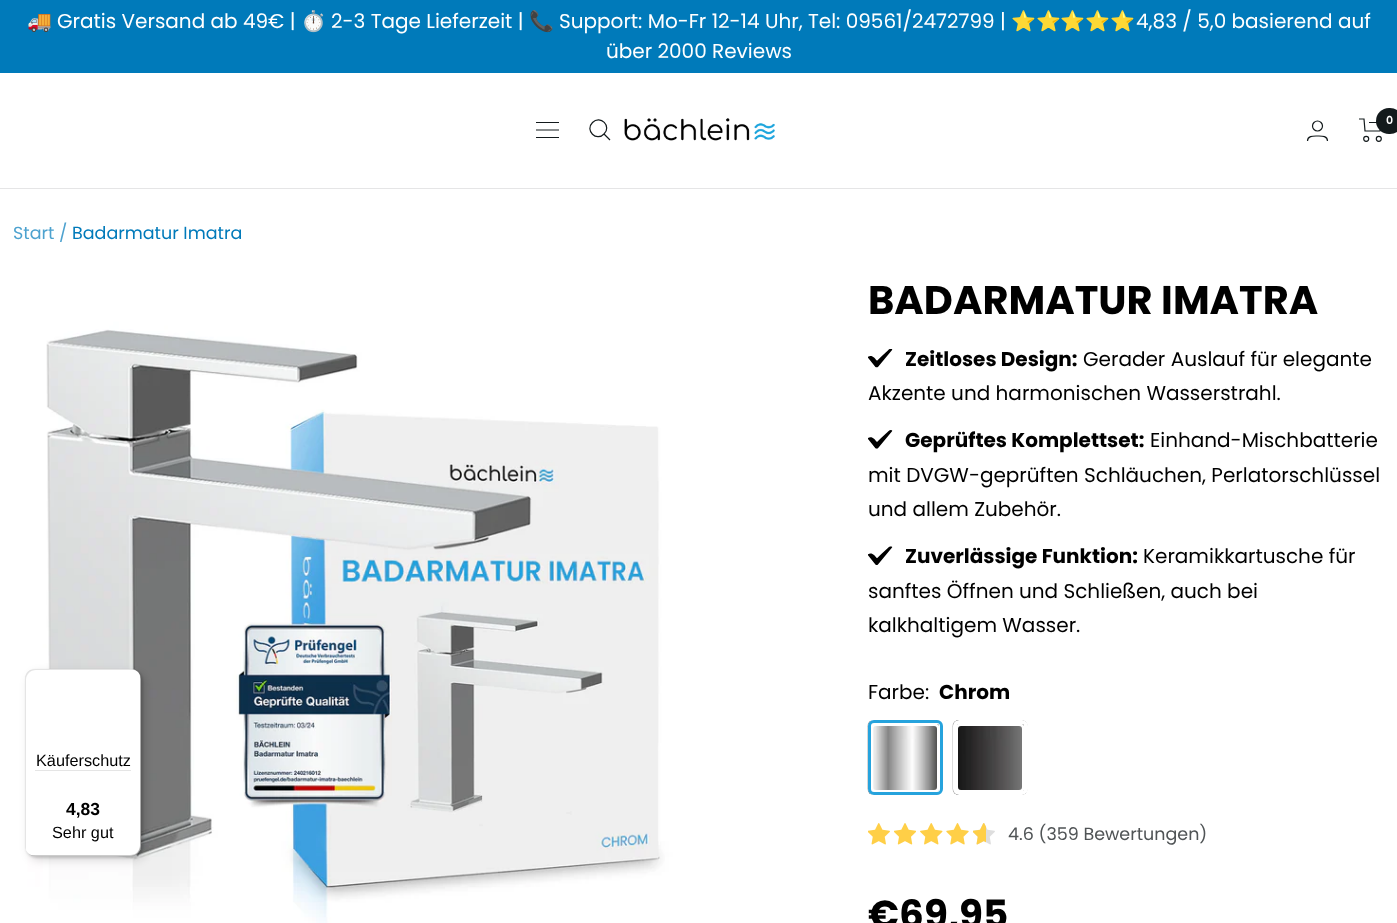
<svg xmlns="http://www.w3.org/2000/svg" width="1397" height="923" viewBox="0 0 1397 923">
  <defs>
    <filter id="blur1" x="-50%" y="-200%" width="200%" height="500%"><feGaussianBlur stdDeviation="5"/></filter>
    <filter id="blur2" x="-50%" y="-200%" width="200%" height="500%"><feGaussianBlur stdDeviation="1"/></filter>
  </defs>
  <rect width="100%" height="100%" fill="#ffffff"/>
  <rect x="0" y="0" width="1397" height="73" fill="#007aba"/>
  <text x="27" y="28" font-family="Noto Color Emoji" font-size="20" fill="#ffffff">🚚</text>
  <text x="57" y="28" font-family="Poppins" font-size="20" fill="#ffffff">Gratis Versand ab 49€ |</text>
  <text x="301" y="28" font-family="Noto Color Emoji" font-size="20" fill="#ffffff">⏱️</text>
  <text x="331" y="28" font-family="Poppins" font-size="20" fill="#ffffff">2-3 Tage Lieferzeit |</text>
  <text x="529" y="28" font-family="Noto Color Emoji" font-size="20" fill="#ffffff">📞</text>
  <text x="559" y="28" font-family="Poppins" font-size="20" fill="#ffffff">Support: Mo-Fr 12-14 Uhr, Tel: 09561/2472799 |</text>
  <text x="1011" y="28" font-family="Noto Color Emoji" font-size="20" fill="#ffffff">⭐️⭐️⭐️⭐️⭐️</text>
  <text x="1136" y="28" font-family="Poppins" font-size="20" fill="#ffffff">4,83 / 5,0 basierend auf</text>
  <text x="606" y="58" font-family="Poppins" font-size="20" fill="#ffffff">über 2000 Reviews</text>
  <path d="M0 188V189H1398V74V188Z" fill="#e5e5e6"/>
  <path d="M536 122.5H559M536 137.5H559ZM536 130H559Z" fill="none" stroke="#131a1c" stroke-width="1.2"/>
  <path d="M604 134C612 126.5 600.5 114.5 592.5 122.5C584.5 130.5 596.5 142 604 134ZM604 134L610 140" fill="none" stroke="#131a1c" stroke-width="1.2"/>
  <image x="624" y="118" width="151" height="23" href="img1.png"/>
  <circle cx="1317.5" cy="126" r="5" fill="none" stroke="#131a1c" stroke-width="1.2"/>
  <path d="M1307.5 141C1307.5 135.5 1313.5 136 1317.5 136C1321.5 136 1327.5 135.5 1327.5 141" fill="none" stroke="#131a1c" stroke-width="1.2"/>
  <path d="M1359 119H1364L1365 131H1380L1382.5 122.5H1369" fill="none" stroke="#131a1c" stroke-width="1.2"/>
  <circle cx="1366.2" cy="138.8" r="2.5" fill="none" stroke="#131a1c" stroke-width="1.2"/>
  <circle cx="1378.8" cy="138.8" r="2.5" fill="none" stroke="#131a1c" stroke-width="1.2"/>
  <rect x="1376" y="108" width="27" height="26" rx="13" fill="#131a1c"/>
  <text x="1386" y="124" font-family="Poppins" font-size="11" font-weight="600" fill="#ffffff">0</text>
  <text x="13" y="239" font-family="Poppins" font-size="17.5" fill="#4da2cf">Start</text>
  <text x="59" y="239" font-family="Poppins" font-size="17.5" fill="#4da2cf">/</text>
  <text x="72" y="239" font-family="Poppins" font-size="17.5" fill="#007aba">Badarmatur Imatra</text>
  <image x="13" y="280" width="663" height="643" href="img2.png"/>
  <text x="868" y="314" font-family="Poppins" font-size="40" font-weight="bold" fill="#000000">BADARMATUR IMATRA</text>
  <image x="868" y="349" width="25" height="19" href="img3.png"/>
  <text x="905" y="366" font-family="Poppins" font-size="20" font-weight="bold" fill="#000000">Zeitloses Design:</text>
  <text x="1083" y="366" font-family="Poppins" font-size="20" fill="#000000">Gerader Auslauf für elegante</text>
  <text x="868" y="400" font-family="Poppins" font-size="20" fill="#000000">Akzente und harmonischen Wasserstrahl.</text>
  <image x="868" y="430" width="25" height="19" href="img4.png"/>
  <text x="905" y="447" font-family="Poppins" font-size="20" font-weight="bold" fill="#000000">Geprüftes Komplettset:</text>
  <text x="1150" y="447" font-family="Poppins" font-size="20" fill="#000000">Einhand-Mischbatterie</text>
  <text x="868" y="482" font-family="Poppins" font-size="20" fill="#000000">mit DVGW-geprüften Schläuchen, Perlatorschlüssel</text>
  <text x="868" y="516" font-family="Poppins" font-size="20" fill="#000000">und allem Zubehör.</text>
  <image x="868" y="546" width="25" height="19" href="img5.png"/>
  <text x="905" y="563" font-family="Poppins" font-size="20" font-weight="bold" fill="#000000">Zuverlässige Funktion:</text>
  <text x="1143" y="563" font-family="Poppins" font-size="20" fill="#000000">Keramikkartusche für</text>
  <text x="868" y="598" font-family="Poppins" font-size="20" fill="#000000">sanftes Öffnen und Schließen, auch bei</text>
  <text x="868" y="632" font-family="Poppins" font-size="20" fill="#000000">kalkhaltigem Wasser.</text>
  <text x="868" y="699" font-family="Poppins" font-size="20" fill="#000000">Farbe:</text>
  <text x="939" y="699" font-family="Poppins" font-size="20" font-weight="bold" fill="#000000">Chrom</text>
  <image x="867" y="720" width="76" height="75" href="img6.png"/>
  <rect x="870" y="722" width="71" height="71" rx="4" fill="none" stroke="#ffffff" stroke-width="4"/>
  <rect x="871.5" y="724.5" width="67" height="67" rx="4.5" fill="none" stroke="#ffffff" stroke-width="3"/>
  <rect x="869.5" y="721.5" width="72" height="72" rx="4.5" fill="none" stroke="#26a3dd" stroke-width="3"/>
  <image x="952" y="720" width="76" height="75" href="img7.png"/>
  <rect x="955" y="722" width="71" height="71" rx="4" fill="none" stroke="#ffffff" stroke-width="4"/>
  <rect x="956.5" y="724.5" width="67" height="67" rx="4.5" fill="none" stroke="#ffffff" stroke-width="3"/>
  <image x="868" y="823" width="22" height="22" href="img8.png"/>
  <image x="894" y="823" width="22" height="22" href="img9.png"/>
  <image x="920" y="823" width="23" height="22" href="img10.png"/>
  <image x="946" y="823" width="23" height="22" href="img11.png"/>
  <image x="973" y="823" width="22" height="22" href="img12.png"/>
  <image x="973" y="823" width="13" height="22" href="img13.png"/>
  <text x="1008" y="840" font-family="Poppins" font-size="17.5" fill="#505456">4.6 (359 Bewertungen)</text>
  <text x="868" y="928" font-family="Poppins" font-size="39" font-weight="bold" fill="#000000">€69,95</text>
  <rect x="29" y="673" width="116" height="187" rx="10" fill="#000000" fill-opacity="0.15" filter="url(#blur1)"/>
  <rect x="26" y="670" width="117" height="188" rx="10" fill="#000000" fill-opacity="0.15" filter="url(#blur2)"/>
  <rect x="25" y="669" width="116" height="187" rx="10" fill="#ffffff"/>
  <path d="M36 670H132C134 670 136 670 137 671C136 670 133 669 131 669H35C29 669 25 673 25 679V846C25 848 26 850 27 852C26 851 26 849 26 848V680C26 674 31 670 36 670Z" fill="#000000" fill-opacity="0.1"/>
  <path d="M29 854C30 855 33 856 35 856H131C137 856 141 852 141 846V679C141 677 140 674 139 673C140 674 140 676 140 678V845C140 851 136 855 130 855H34C32 855 30 855 29 854Z" fill="#000000" fill-opacity="0.2"/>
  <path d="M130 856H131C137 856 141 852 141 846V679C141 677 140 674 139 673C140 674 140 676 140 678V846C140 851 136 856 130 856Z" fill="#323232" fill-opacity="0.2"/>
  <path d="M131 856C136.5 856 141 851.5 141 846C141 851 136 856 131 856Z" fill="#ffffff" fill-opacity="0.3"/>
  <text x="36" y="766" font-family="Liberation Sans" font-size="16.25" fill="#000000">Käuferschutz</text>
  <rect x="35" y="770" width="96" height="1" fill="#e5e5e5"/>
  <text x="66" y="815" font-family="Liberation Sans" font-size="17.5" font-weight="bold" fill="#000000">4,83</text>
  <text x="52" y="838" font-family="Liberation Sans" font-size="16.25" fill="#000000">Sehr gut</text>
</svg>
